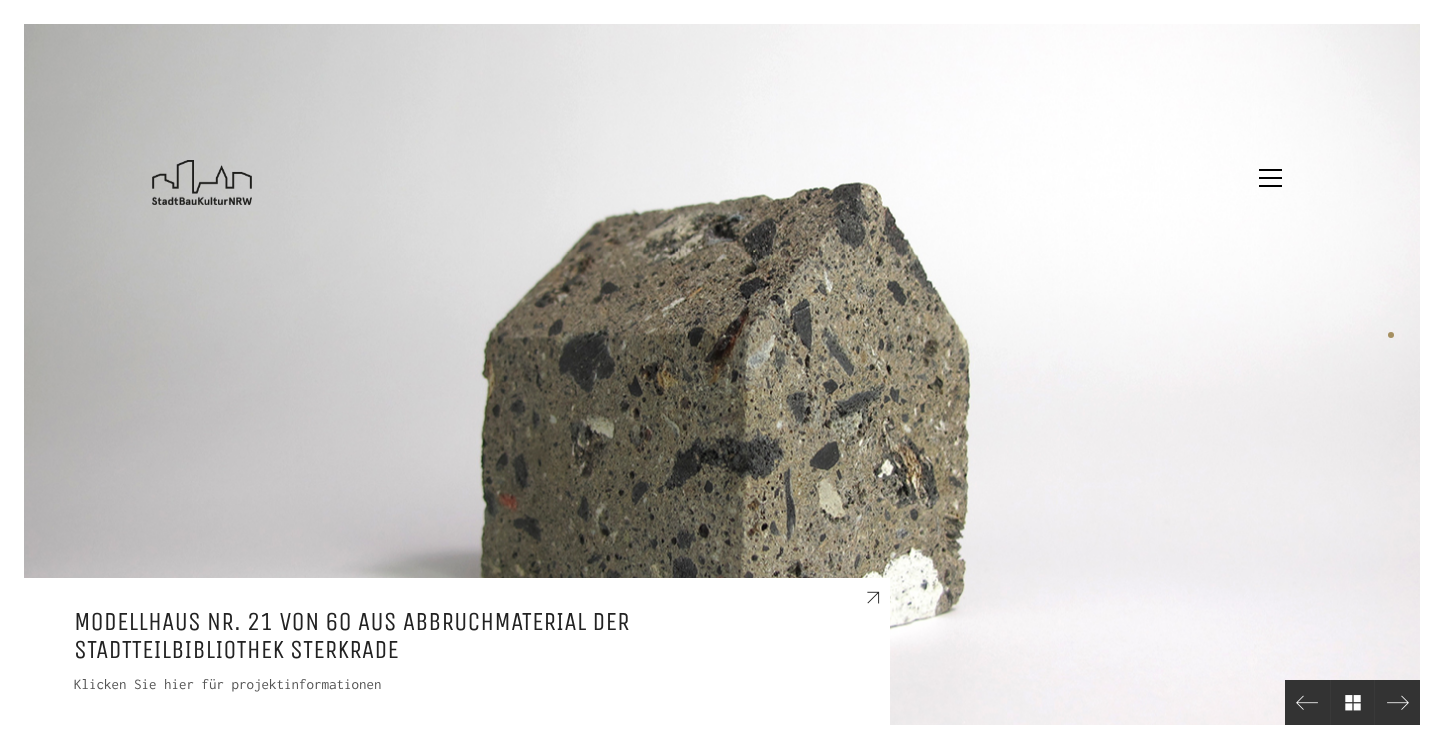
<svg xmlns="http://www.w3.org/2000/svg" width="1444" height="749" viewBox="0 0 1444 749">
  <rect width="100%" height="100%" fill="#ffffff"/>
  <image x="24" y="24" width="1396" height="701" href="img1.png"/>
  <image x="152" y="160" width="100" height="45" href="img2.png"/>
  <rect x="1259" y="177" width="23" height="2" fill="#000000"/>
  <rect x="1259" y="169" width="23" height="2" fill="#000000"/>
  <rect x="1259" y="185" width="23" height="2" fill="#000000"/>
  <circle cx="1391" cy="335" r="3" fill="#a58f60"/>
  <rect x="24" y="578" width="866" height="147" fill="#ffffff"/>
  <image x="867" y="591" width="13" height="13" href="img3.png"/>
  <text x="74" y="630" font-family="Unica One" font-size="26" fill="#222222">MODELLHAUS NR. 21 VON 60 AUS ABBRUCHMATERIAL DER</text>
  <text x="74" y="658" font-family="Unica One" font-size="26" fill="#222222">STADTTEILBIBLIOTHEK STERKRADE</text>
  <text x="74" y="689" font-family="Inconsolata" font-size="15" fill="#555555">Klicken Sie hier für projektinformationen</text>
  <rect x="1285" y="680" width="45" height="45" fill="#333333"/>
  <image x="1296" y="695" width="22" height="15" href="img4.png"/>
  <rect x="1331" y="680" width="43" height="45" fill="#333333"/>
  <rect x="1374" y="680" width="1" height="45" fill="#393939"/>
  <rect x="1330" y="680" width="1" height="45" fill="#393939"/>
  <image x="1345" y="695" width="16" height="16" href="img5.png"/>
  <rect x="1375" y="680" width="45" height="45" fill="#333333"/>
  <image x="1387" y="695" width="22" height="15" href="img6.png"/>
</svg>
